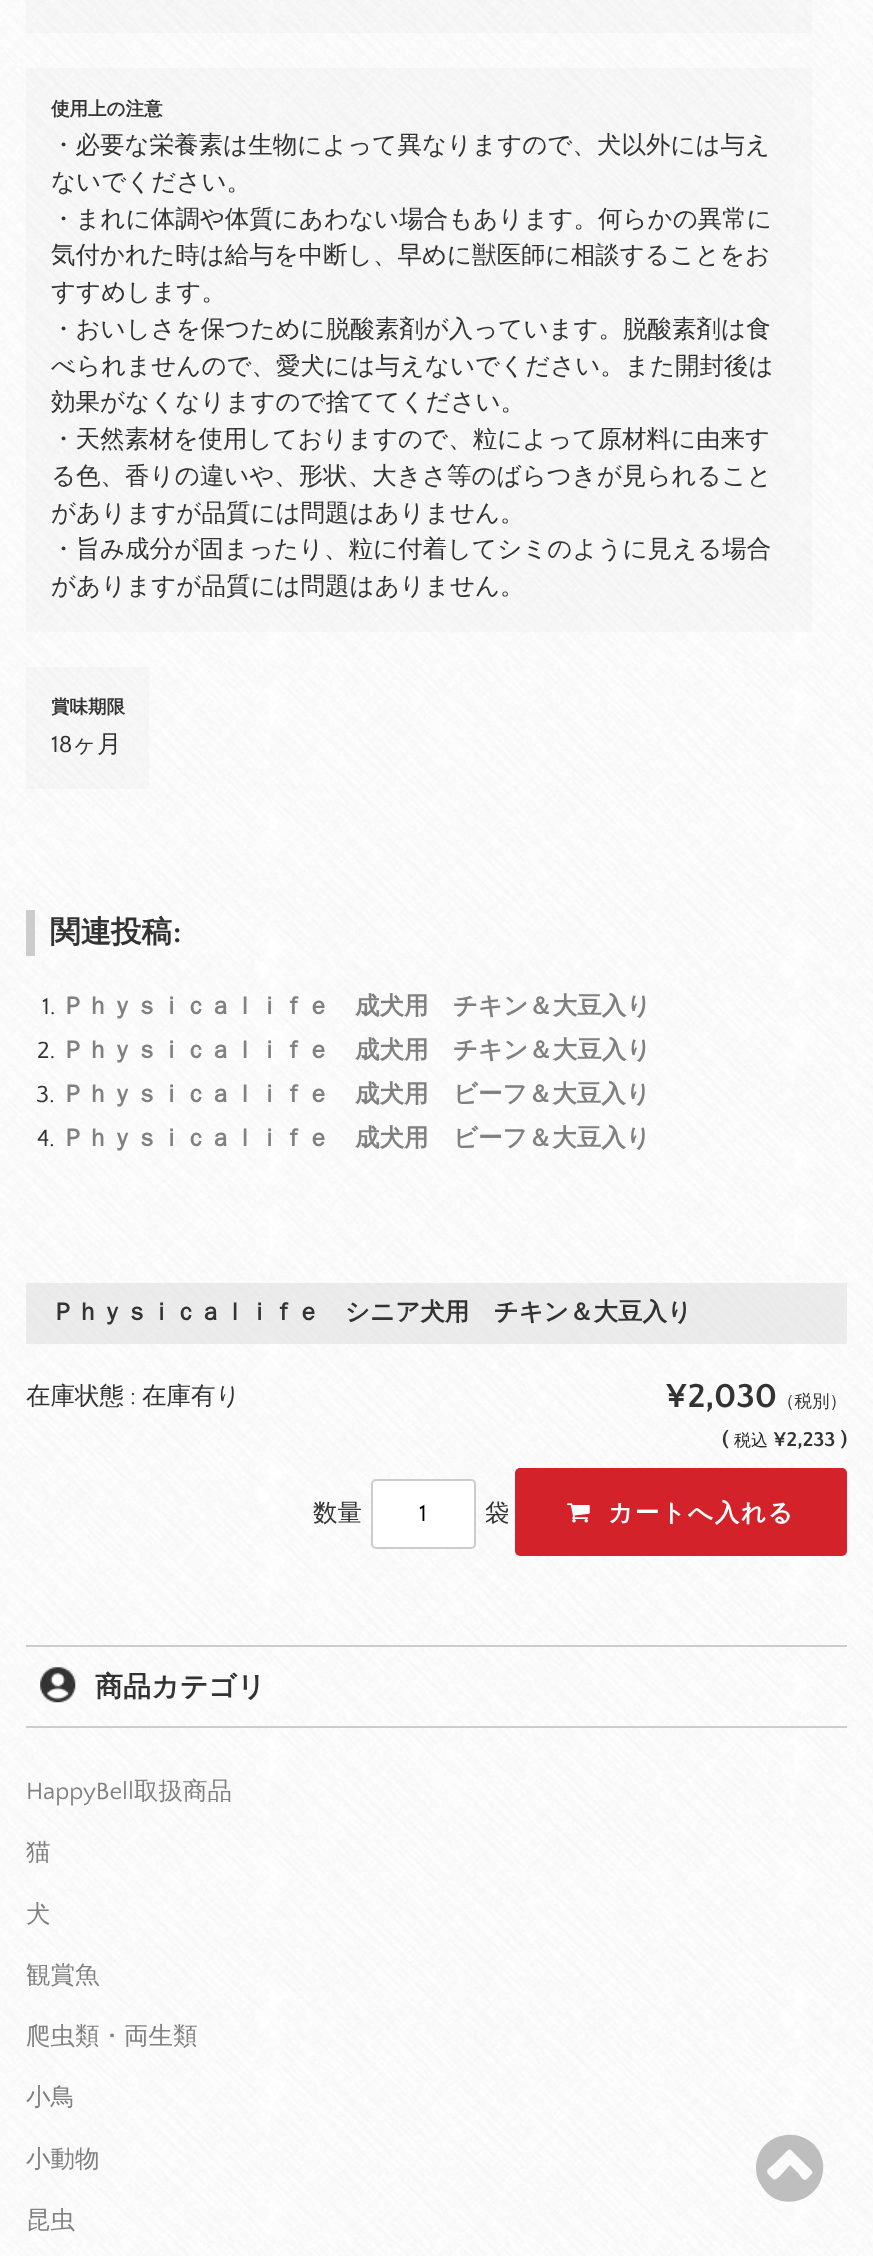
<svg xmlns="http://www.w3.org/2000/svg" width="873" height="2256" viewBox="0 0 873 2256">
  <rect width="100%" height="100%" fill="#ffffff"/>
  <image x="0" y="0" width="873" height="2256" href="img1.png"/>
  <rect x="26" y="0" width="786" height="33" fill="#cccccc" fill-opacity="0.1"/>
  <rect x="26" y="68" width="786" height="564" fill="#cccccc" fill-opacity="0.1"/>
  <text x="51" y="115" font-family="WenQuanYi Zen Hei" font-size="18.5" font-weight="bold" fill="#333333">使用上の注意</text>
  <text x="51" y="153" font-family="WenQuanYi Zen Hei" font-size="24.5" font-weight="500" fill="#333333">・必要な栄養素は生物によって異なりますので、犬以外には与え</text>
  <text x="51" y="190" font-family="WenQuanYi Zen Hei" font-size="24.5" font-weight="500" fill="#333333">ないでください。</text>
  <text x="51" y="227" font-family="WenQuanYi Zen Hei" font-size="24.5" font-weight="500" fill="#333333">・まれに体調や体質にあわない場合もあります。何らかの異常に</text>
  <text x="51" y="263" font-family="WenQuanYi Zen Hei" font-size="24.5" font-weight="500" fill="#333333">気付かれた時は給与を中断し、早めに獣医師に相談することをお</text>
  <text x="51" y="300" font-family="WenQuanYi Zen Hei" font-size="24.5" font-weight="500" fill="#333333">すすめします。</text>
  <text x="51" y="337" font-family="WenQuanYi Zen Hei" font-size="24.5" font-weight="500" fill="#333333">・おいしさを保つために脱酸素剤が入っています。脱酸素剤は食</text>
  <text x="51" y="374" font-family="WenQuanYi Zen Hei" font-size="24.5" font-weight="500" fill="#333333">べられませんので、愛犬には与えないでください。また開封後は</text>
  <text x="51" y="410" font-family="WenQuanYi Zen Hei" font-size="24.5" font-weight="500" fill="#333333">効果がなくなりますので捨ててください。</text>
  <text x="51" y="447" font-family="WenQuanYi Zen Hei" font-size="24.5" font-weight="500" fill="#333333">・天然素材を使用しておりますので、粒によって原材料に由来す</text>
  <text x="51" y="484" font-family="WenQuanYi Zen Hei" font-size="24.5" font-weight="500" fill="#333333">る色、香りの違いや、形状、大きさ等のばらつきが見られること</text>
  <text x="51" y="521" font-family="WenQuanYi Zen Hei" font-size="24.5" font-weight="500" fill="#333333">がありますが品質には問題はありません。</text>
  <text x="51" y="557" font-family="WenQuanYi Zen Hei" font-size="24.5" font-weight="500" fill="#333333">・旨み成分が固まったり、粒に付着してシミのように見える場合</text>
  <text x="51" y="594" font-family="WenQuanYi Zen Hei" font-size="24.5" font-weight="500" fill="#333333">がありますが品質には問題はありません。</text>
  <rect x="26" y="667" width="123" height="122" fill="#cccccc" fill-opacity="0.1"/>
  <text x="51" y="713" font-family="WenQuanYi Zen Hei" font-size="18.5" font-weight="bold" fill="#333333">賞味期限</text>
  <text x="51" y="752" font-family="Quattrocento Sans" font-size="24.5" fill="#333333">18</text>
  <text x="72" y="752" font-family="WenQuanYi Zen Hei" font-size="24.5" font-weight="500" fill="#333333">ヶ月</text>
  <rect x="26" y="910" width="9" height="46" fill="#cccccc"/>
  <text x="50" y="942" font-family="WenQuanYi Zen Hei" font-size="30.5" font-weight="bold" fill="#333333">関連投稿</text>
  <text x="173" y="942" font-family="Quattrocento Sans" font-size="30.5" font-weight="bold" fill="#333333">:</text>
  <text x="42" y="1014" font-family="Quattrocento Sans" font-size="24.5" fill="#333333">1.</text>
  <text x="61" y="1014" font-family="WenQuanYi Zen Hei" font-size="24.5" font-weight="bold" fill="#808080">Ｐｈｙｓｉｃａｌｉｆｅ　成犬用　チキン＆大豆入り</text>
  <text x="37" y="1058" font-family="Quattrocento Sans" font-size="24.5" fill="#333333">2.</text>
  <text x="61" y="1058" font-family="WenQuanYi Zen Hei" font-size="24.5" font-weight="bold" fill="#808080">Ｐｈｙｓｉｃａｌｉｆｅ　成犬用　チキン＆大豆入り</text>
  <text x="36" y="1102" font-family="Quattrocento Sans" font-size="24.5" fill="#333333">3.</text>
  <text x="61" y="1102" font-family="WenQuanYi Zen Hei" font-size="24.5" font-weight="bold" fill="#808080">Ｐｈｙｓｉｃａｌｉｆｅ　成犬用　ビーフ＆大豆入り</text>
  <text x="37" y="1146" font-family="Quattrocento Sans" font-size="24.5" fill="#333333">4.</text>
  <text x="61" y="1146" font-family="WenQuanYi Zen Hei" font-size="24.5" font-weight="bold" fill="#808080">Ｐｈｙｓｉｃａｌｉｆｅ　成犬用　ビーフ＆大豆入り</text>
  <rect x="26" y="1283" width="821" height="61" fill="#cccccc" fill-opacity="0.33"/>
  <text x="51" y="1320" font-family="WenQuanYi Zen Hei" font-size="24.5" font-weight="bold" fill="#333333">Ｐｈｙｓｉｃａｌｉｆｅ　シニア犬用　チキン＆大豆入り</text>
  <text x="26" y="1404" font-family="WenQuanYi Zen Hei" font-size="24.5" font-weight="500" fill="#333333">在庫状態</text>
  <text x="130" y="1404" font-family="Quattrocento Sans" font-size="24.5" fill="#333333">:</text>
  <text x="142" y="1404" font-family="WenQuanYi Zen Hei" font-size="24.5" font-weight="500" fill="#333333">在庫有り</text>
  <text x="665" y="1407" font-family="Quattrocento Sans" font-size="35" font-weight="bold" fill="#333333">¥2,030</text>
  <text x="777" y="1407" font-family="WenQuanYi Zen Hei" font-size="17.5" font-weight="500" fill="#333333">（税別）</text>
  <text x="722" y="1446" font-family="Quattrocento Sans" font-size="21" font-weight="bold" fill="#333333">(</text>
  <text x="734" y="1446" font-family="WenQuanYi Zen Hei" font-size="17" font-weight="500" fill="#262626">税込</text>
  <text x="773" y="1446" font-family="Quattrocento Sans" font-size="21" font-weight="bold" fill="#333333">¥2,233 )</text>
  <text x="313" y="1521" font-family="WenQuanYi Zen Hei" font-size="24.5" font-weight="500" fill="#333333">数量</text>
  <rect x="372" y="1480" width="103" height="68" rx="4" fill="#ffffff" stroke="#cccccc" stroke-width="2"/>
  <text x="419" y="1521" font-family="Quattrocento Sans" font-size="24.5" fill="#000000">1</text>
  <text x="485" y="1521" font-family="WenQuanYi Zen Hei" font-size="24.5" font-weight="500" fill="#333333">袋</text>
  <rect x="515" y="1468" width="332" height="88" rx="5" fill="#d3222a"/>
  <image x="567" y="1503" width="23" height="20" href="img2.png"/>
  <text x="608" y="1521" font-family="WenQuanYi Zen Hei" font-size="24.5" font-weight="bold" letter-spacing="1.75" fill="#ffffff">カートへ入れる</text>
  <rect x="26" y="1645" width="821" height="2" fill="#cccccc"/>
  <rect x="26" y="1726" width="821" height="2" fill="#cccccc"/>
  <image x="40" y="1667" width="36" height="36" href="img3.png"/>
  <text x="95" y="1696" font-family="WenQuanYi Zen Hei" font-size="28" font-weight="bold" fill="#333333">商品カテゴリ</text>
  <text x="26" y="1799" font-family="Quattrocento Sans" font-size="24.5" fill="#808080">HappyBell</text>
  <text x="134" y="1799" font-family="WenQuanYi Zen Hei" font-size="24.5" font-weight="500" fill="#808080">取扱商品</text>
  <text x="26" y="1860" font-family="WenQuanYi Zen Hei" font-size="24.5" font-weight="500" fill="#808080">猫</text>
  <text x="26" y="1922" font-family="WenQuanYi Zen Hei" font-size="24.5" font-weight="500" fill="#808080">犬</text>
  <text x="26" y="1983" font-family="WenQuanYi Zen Hei" font-size="24.5" font-weight="500" fill="#808080">観賞魚</text>
  <text x="26" y="2044" font-family="WenQuanYi Zen Hei" font-size="24.5" font-weight="500" fill="#808080">爬虫類・両生類</text>
  <text x="26" y="2105" font-family="WenQuanYi Zen Hei" font-size="24.5" font-weight="500" fill="#808080">小鳥</text>
  <text x="26" y="2167" font-family="WenQuanYi Zen Hei" font-size="24.5" font-weight="500" fill="#808080">小動物</text>
  <text x="26" y="2228" font-family="WenQuanYi Zen Hei" font-size="24.5" font-weight="500" fill="#808080">昆虫</text>
  <path d="M807 2179C815 2171 814 2173 805 2164L795 2154C789 2148 790 2148 784 2154L774 2164C770 2168 764 2170 769 2175C774 2180 774 2181 779 2177L790 2165L799 2174C800 2176 804 2182 807 2179ZM819 2151C822 2157 824 2164 823 2170C821 2203 777 2214 761 2185C757 2179 756 2173 756 2166C758 2133 802 2123 819 2151Z" fill="#aaaaaa" fill-opacity="0.75"/>
</svg>
